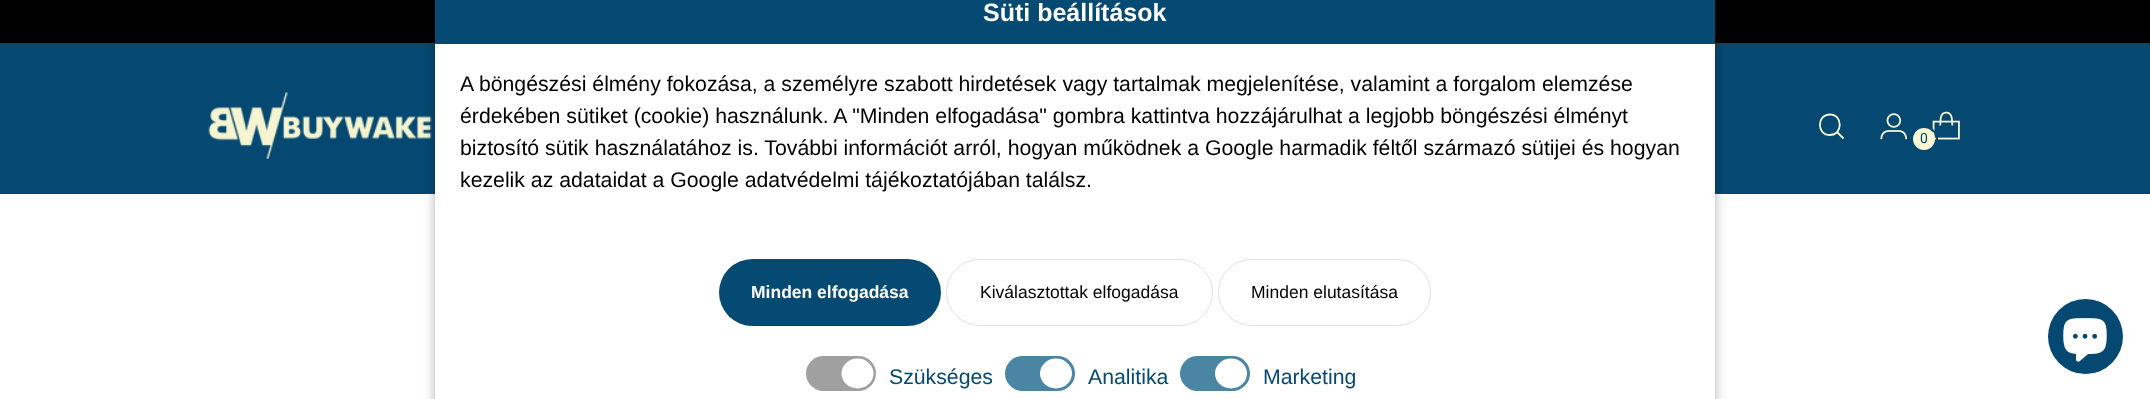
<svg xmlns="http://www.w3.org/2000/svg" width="2150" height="399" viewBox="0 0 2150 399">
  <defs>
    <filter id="blur1" x="-50%" y="-200%" width="200%" height="500%"><feGaussianBlur stdDeviation="6"/></filter>
  </defs>
  <rect width="100%" height="100%" fill="#ffffff"/>
  <rect x="0" y="0" width="2150" height="43" fill="#000000"/>
  <rect x="0" y="43" width="2150" height="151" fill="#054972"/>
  <image x="208" y="92" width="224" height="67" href="img1.png"/>
  <rect x="435" y="-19" width="1280" height="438" rx="10" fill="#000000" fill-opacity="0.3" filter="url(#blur1)"/>
  <rect x="435" y="44" width="1280" height="355" fill="#ffffff"/>
  <rect x="435" y="0" width="1280" height="44" fill="#044a73"/>
  <text x="983" y="21" font-family="Liberation Sans" font-size="25" font-weight="bold" fill="#ffffff">Süti beállítások</text>
  <text x="460" y="91" font-family="Liberation Sans" font-size="21.25" fill="#000000">A böngészési élmény fokozása, a személyre szabott hirdetések vagy tartalmak megjelenítése, valamint a forgalom elemzése</text>
  <text x="460" y="123" font-family="Liberation Sans" font-size="21.25" fill="#000000">érdekében sütiket (cookie) használunk. A "Minden elfogadása" gombra kattintva hozzájárulhat a legjobb böngészési élményt</text>
  <text x="460" y="155" font-family="Liberation Sans" font-size="21.25" fill="#000000">biztosító sütik használatához is. További információt arról, hogyan működnek a Google harmadik féltől származó sütijei és hogyan</text>
  <text x="460" y="187" font-family="Liberation Sans" font-size="21.25" fill="#000000">kezelik az adataidat a Google adatvédelmi tájékoztatójában találsz.</text>
  <rect x="719" y="259" width="222" height="67" rx="33.5" fill="#044a73"/>
  <text x="751" y="298" font-family="Liberation Sans" font-size="17.5" font-weight="bold" fill="#ffffff">Minden elfogadása</text>
  <rect x="946.5" y="259.5" width="266" height="66" rx="33" fill="none" stroke="#dfe1e5"/>
  <text x="980" y="298" font-family="Liberation Sans" font-size="17.5" fill="#000000">Kiválasztottak elfogadása</text>
  <rect x="1218.5" y="259.5" width="212" height="66" rx="33" fill="none" stroke="#dfe1e5"/>
  <text x="1251" y="298" font-family="Liberation Sans" font-size="17.5" fill="#000000">Minden elutasítása</text>
  <rect x="806" y="356" width="70" height="35" rx="17.5" fill="#a0a0a0"/>
  <ellipse cx="857.5" cy="373.5" rx="16" ry="15" fill="#ffffff"/>
  <text x="889" y="384" font-family="Liberation Sans" font-size="21.25" fill="#054972">Szükséges</text>
  <rect x="1005" y="356" width="70" height="35" rx="17.5" fill="#4a85a3"/>
  <ellipse cx="1056" cy="373.5" rx="16" ry="15" fill="#ffffff"/>
  <text x="1088" y="384" font-family="Liberation Sans" font-size="21.25" fill="#054972">Analitika</text>
  <rect x="1180" y="356" width="70" height="35" rx="17.5" fill="#4a85a3"/>
  <ellipse cx="1231" cy="373.5" rx="16" ry="15" fill="#ffffff"/>
  <text x="1263" y="384" font-family="Liberation Sans" font-size="21.25" fill="#054972">Marketing</text>
  <path d="M1830 135C1843 135 1843 114.5 1830 114.5C1816.5 114.5 1816.5 135 1830 135Z" fill="none" stroke="#f6f6d2" stroke-width="1.8" stroke-linecap="round"/>
  <path d="M1837 132L1843.5 138.5" fill="none" stroke="#f6f6d2" stroke-width="1.8"/>
  <image x="1880" y="113" width="27" height="27" href="img2.png"/>
  <image x="1932" y="111" width="28" height="29" href="img3.png"/>
  <circle cx="1924.5" cy="139.5" r="12.5" fill="none" stroke="#054972" stroke-width="2"/>
  <circle cx="1924" cy="139" r="11" fill="#f6f6d2"/>
  <text x="1920" y="143" font-family="Roboto" font-size="14" fill="#054972">0</text>
  <circle cx="2085.5" cy="336.5" r="37.5" fill="#054972"/>
  <image x="2063" y="318" width="44" height="44" href="img4.png"/>
</svg>
